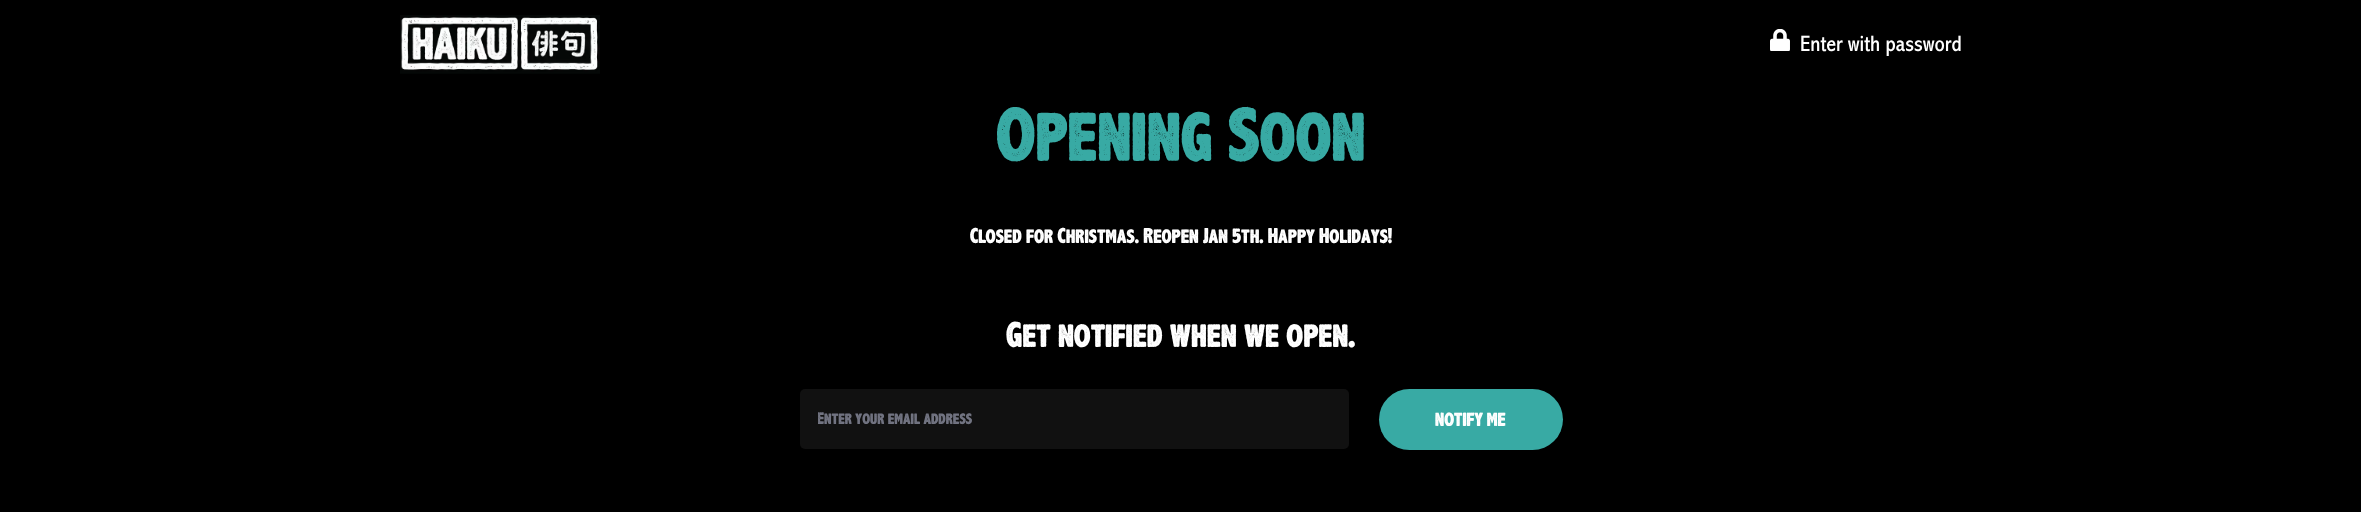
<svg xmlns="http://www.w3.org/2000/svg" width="2361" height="512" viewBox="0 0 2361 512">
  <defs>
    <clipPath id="clip1"><rect x="818" y="409" width="513" height="19"/></clipPath>
  </defs>
  <rect width="100%" height="100%" fill="#000000"/>
  <image x="400" y="15" width="200" height="59" href="img1.png"/>
  <image x="1770" y="29" width="20" height="22" href="img2.png"/>
  <text x="1800" y="51" font-family="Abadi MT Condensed" font-size="22.5" fill="#ffffff">Enter with password</text>
  <text x="996" y="161" font-family="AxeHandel" font-size="80" fill="#38aaa4">Opening Soon</text>
  <text x="970" y="243" font-family="AxeHandel" font-size="22.5" fill="#ffffff">Closed for Christmas. Reopen Jan 5th. Happy Holidays!</text>
  <text x="1006" y="347" font-family="AxeHandel" font-size="37.5" fill="#ffffff">Get notified when we open.</text>
  <rect x="800" y="389" width="549" height="60" rx="5" fill="#111111"/>
  <g clip-path="url(#clip1)">
    <text x="817" y="424" font-family="AxeHandel" font-size="17.5" fill="#727482">Enter your email address</text>
  </g>
  <rect x="1379" y="389" width="184" height="61" rx="30.5" fill="#38aaa4"/>
  <text x="1435" y="426" font-family="AxeHandel" font-size="20" fill="#ffffff">NOTIFY ME</text>
</svg>
